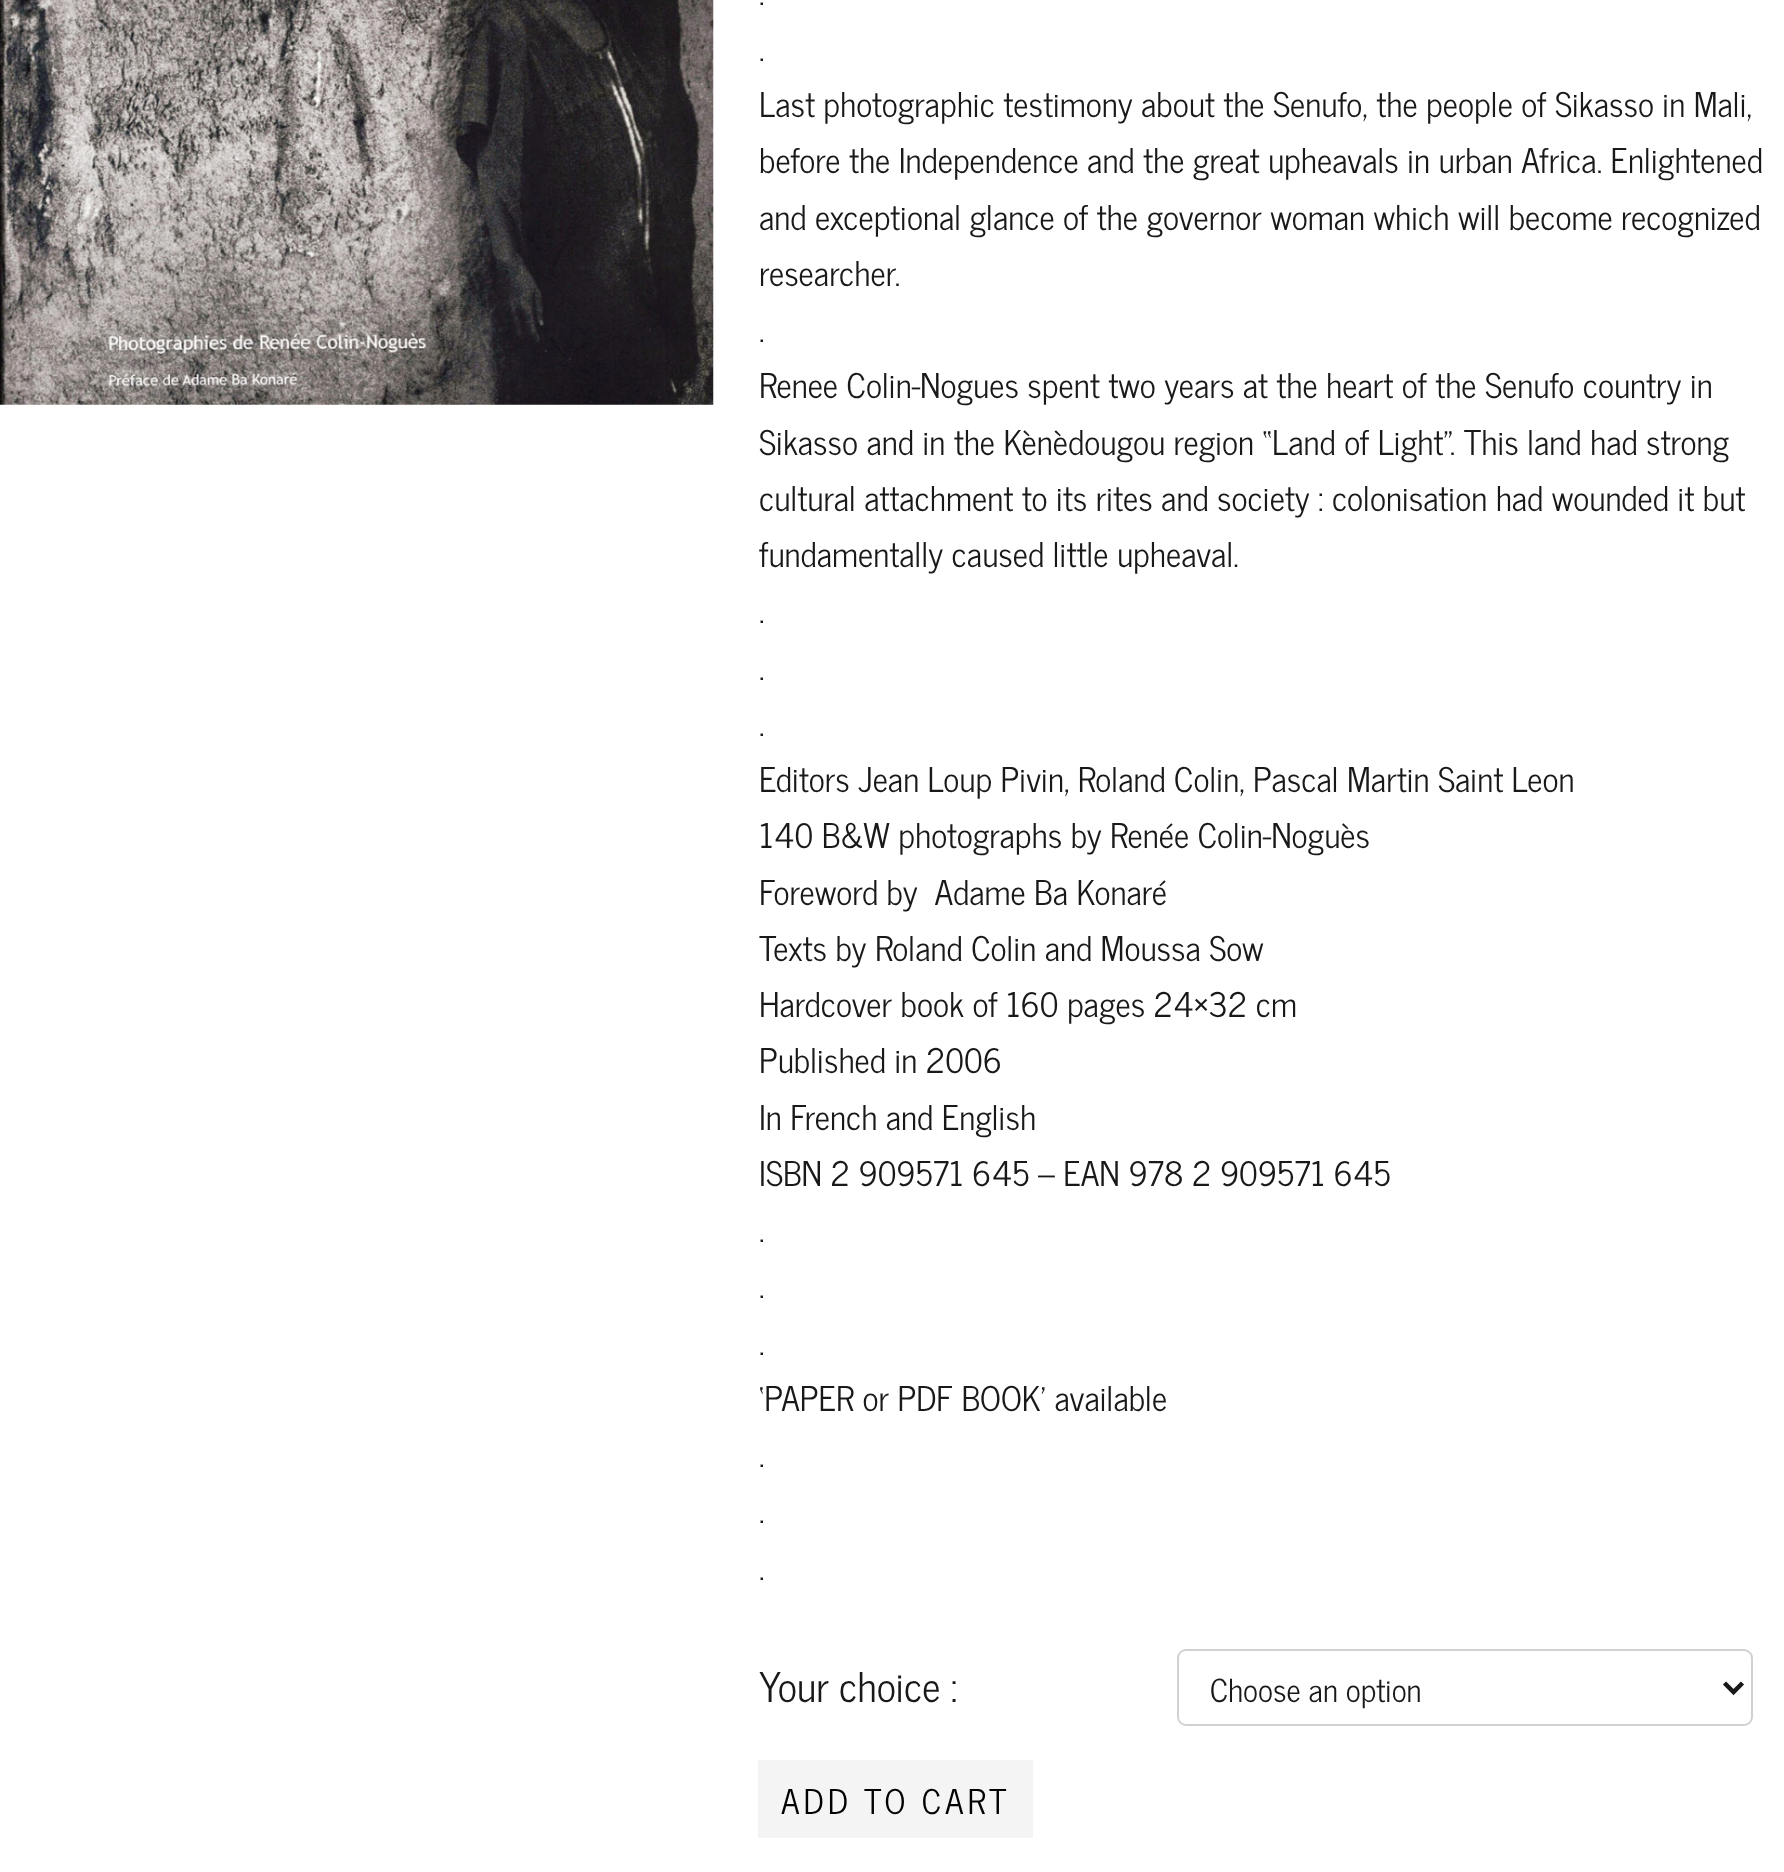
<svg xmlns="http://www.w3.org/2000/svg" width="1784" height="1872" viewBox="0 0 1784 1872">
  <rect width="100%" height="100%" fill="#ffffff"/>
  <image x="0" y="0" width="714" height="405" href="img1.png"/>
  <text x="759" y="5" font-family="News Cycle" font-size="33.75" fill="#191919">.</text>
  <text x="759" y="61" font-family="News Cycle" font-size="33.75" fill="#191919">.</text>
  <text x="759" y="117" font-family="News Cycle" font-size="33.75" fill="#191919">Last photographic testimony about the Senufo, the people of Sikasso in Mali,</text>
  <text x="759" y="173" font-family="News Cycle" font-size="33.75" fill="#191919">before the Independence and the great upheavals in urban Africa. Enlightened</text>
  <text x="759" y="230" font-family="News Cycle" font-size="33.75" fill="#191919">and exceptional glance of the governor woman which will become recognized</text>
  <text x="759" y="286" font-family="News Cycle" font-size="33.75" fill="#191919">researcher.</text>
  <text x="759" y="342" font-family="News Cycle" font-size="33.75" fill="#191919">.</text>
  <text x="759" y="398" font-family="News Cycle" font-size="33.75" fill="#191919">Renee Colin-Nogues spent two years at the heart of the Senufo country in</text>
  <text x="759" y="455" font-family="News Cycle" font-size="33.75" fill="#191919">Sikasso and in the Kènèdougou region “Land of Light”. This land had strong</text>
  <text x="759" y="511" font-family="News Cycle" font-size="33.75" fill="#191919">cultural attachment to its rites and society : colonisation had wounded it but</text>
  <text x="759" y="567" font-family="News Cycle" font-size="33.75" fill="#191919">fundamentally caused little upheaval.</text>
  <text x="759" y="623" font-family="News Cycle" font-size="33.75" fill="#191919">.</text>
  <text x="759" y="680" font-family="News Cycle" font-size="33.75" fill="#191919">.</text>
  <text x="759" y="736" font-family="News Cycle" font-size="33.75" fill="#191919">.</text>
  <text x="759" y="792" font-family="News Cycle" font-size="33.75" fill="#191919">Editors Jean Loup Pivin, Roland Colin, Pascal Martin Saint Leon</text>
  <text x="759" y="848" font-family="News Cycle" font-size="33.75" fill="#191919">140 B&amp;W photographs by Renée Colin-Noguès</text>
  <text x="759" y="905" font-family="News Cycle" font-size="33.75" fill="#191919" xml:space="preserve">Foreword by  Adame Ba Konaré</text>
  <text x="759" y="961" font-family="News Cycle" font-size="33.75" fill="#191919">Texts by Roland Colin and Moussa Sow</text>
  <text x="759" y="1017" font-family="News Cycle" font-size="33.75" fill="#191919">Hardcover book of 160 pages 24×32 cm</text>
  <text x="759" y="1073" font-family="News Cycle" font-size="33.75" fill="#191919">Published in 2006</text>
  <text x="759" y="1130" font-family="News Cycle" font-size="33.75" fill="#191919">In French and English</text>
  <text x="759" y="1186" font-family="News Cycle" font-size="33.75" fill="#191919">ISBN 2 909571 645 – EAN 978 2 909571 645</text>
  <text x="759" y="1242" font-family="News Cycle" font-size="33.75" fill="#191919">.</text>
  <text x="759" y="1298" font-family="News Cycle" font-size="33.75" fill="#191919">.</text>
  <text x="759" y="1355" font-family="News Cycle" font-size="33.75" fill="#191919">.</text>
  <text x="759" y="1411" font-family="News Cycle" font-size="33.75" fill="#191919">‘PAPER or PDF BOOK’ available</text>
  <text x="759" y="1467" font-family="News Cycle" font-size="33.75" fill="#191919">.</text>
  <text x="759" y="1523" font-family="News Cycle" font-size="33.75" fill="#191919">.</text>
  <text x="759" y="1580" font-family="News Cycle" font-size="33.75" fill="#191919">.</text>
  <text x="759" y="1702" font-family="News Cycle" font-size="40.5" fill="#191919">Your choice :</text>
  <rect x="1178" y="1650" width="574" height="75" rx="8" fill="none" stroke="#d1d1d1" stroke-width="2"/>
  <path d="M1724.5 1683L1733.5 1692L1742.5 1683" fill="none" stroke="#191919" stroke-width="4.5"/>
  <text x="1210" y="1702" font-family="News Cycle" font-size="31.5" fill="#191919">Choose an option</text>
  <rect x="758" y="1760" width="275" height="78" fill="#f4f4f4"/>
  <text x="781" y="1814" font-family="News Cycle" font-size="33.75" letter-spacing="4" fill="#000000">ADD TO CART</text>
</svg>
